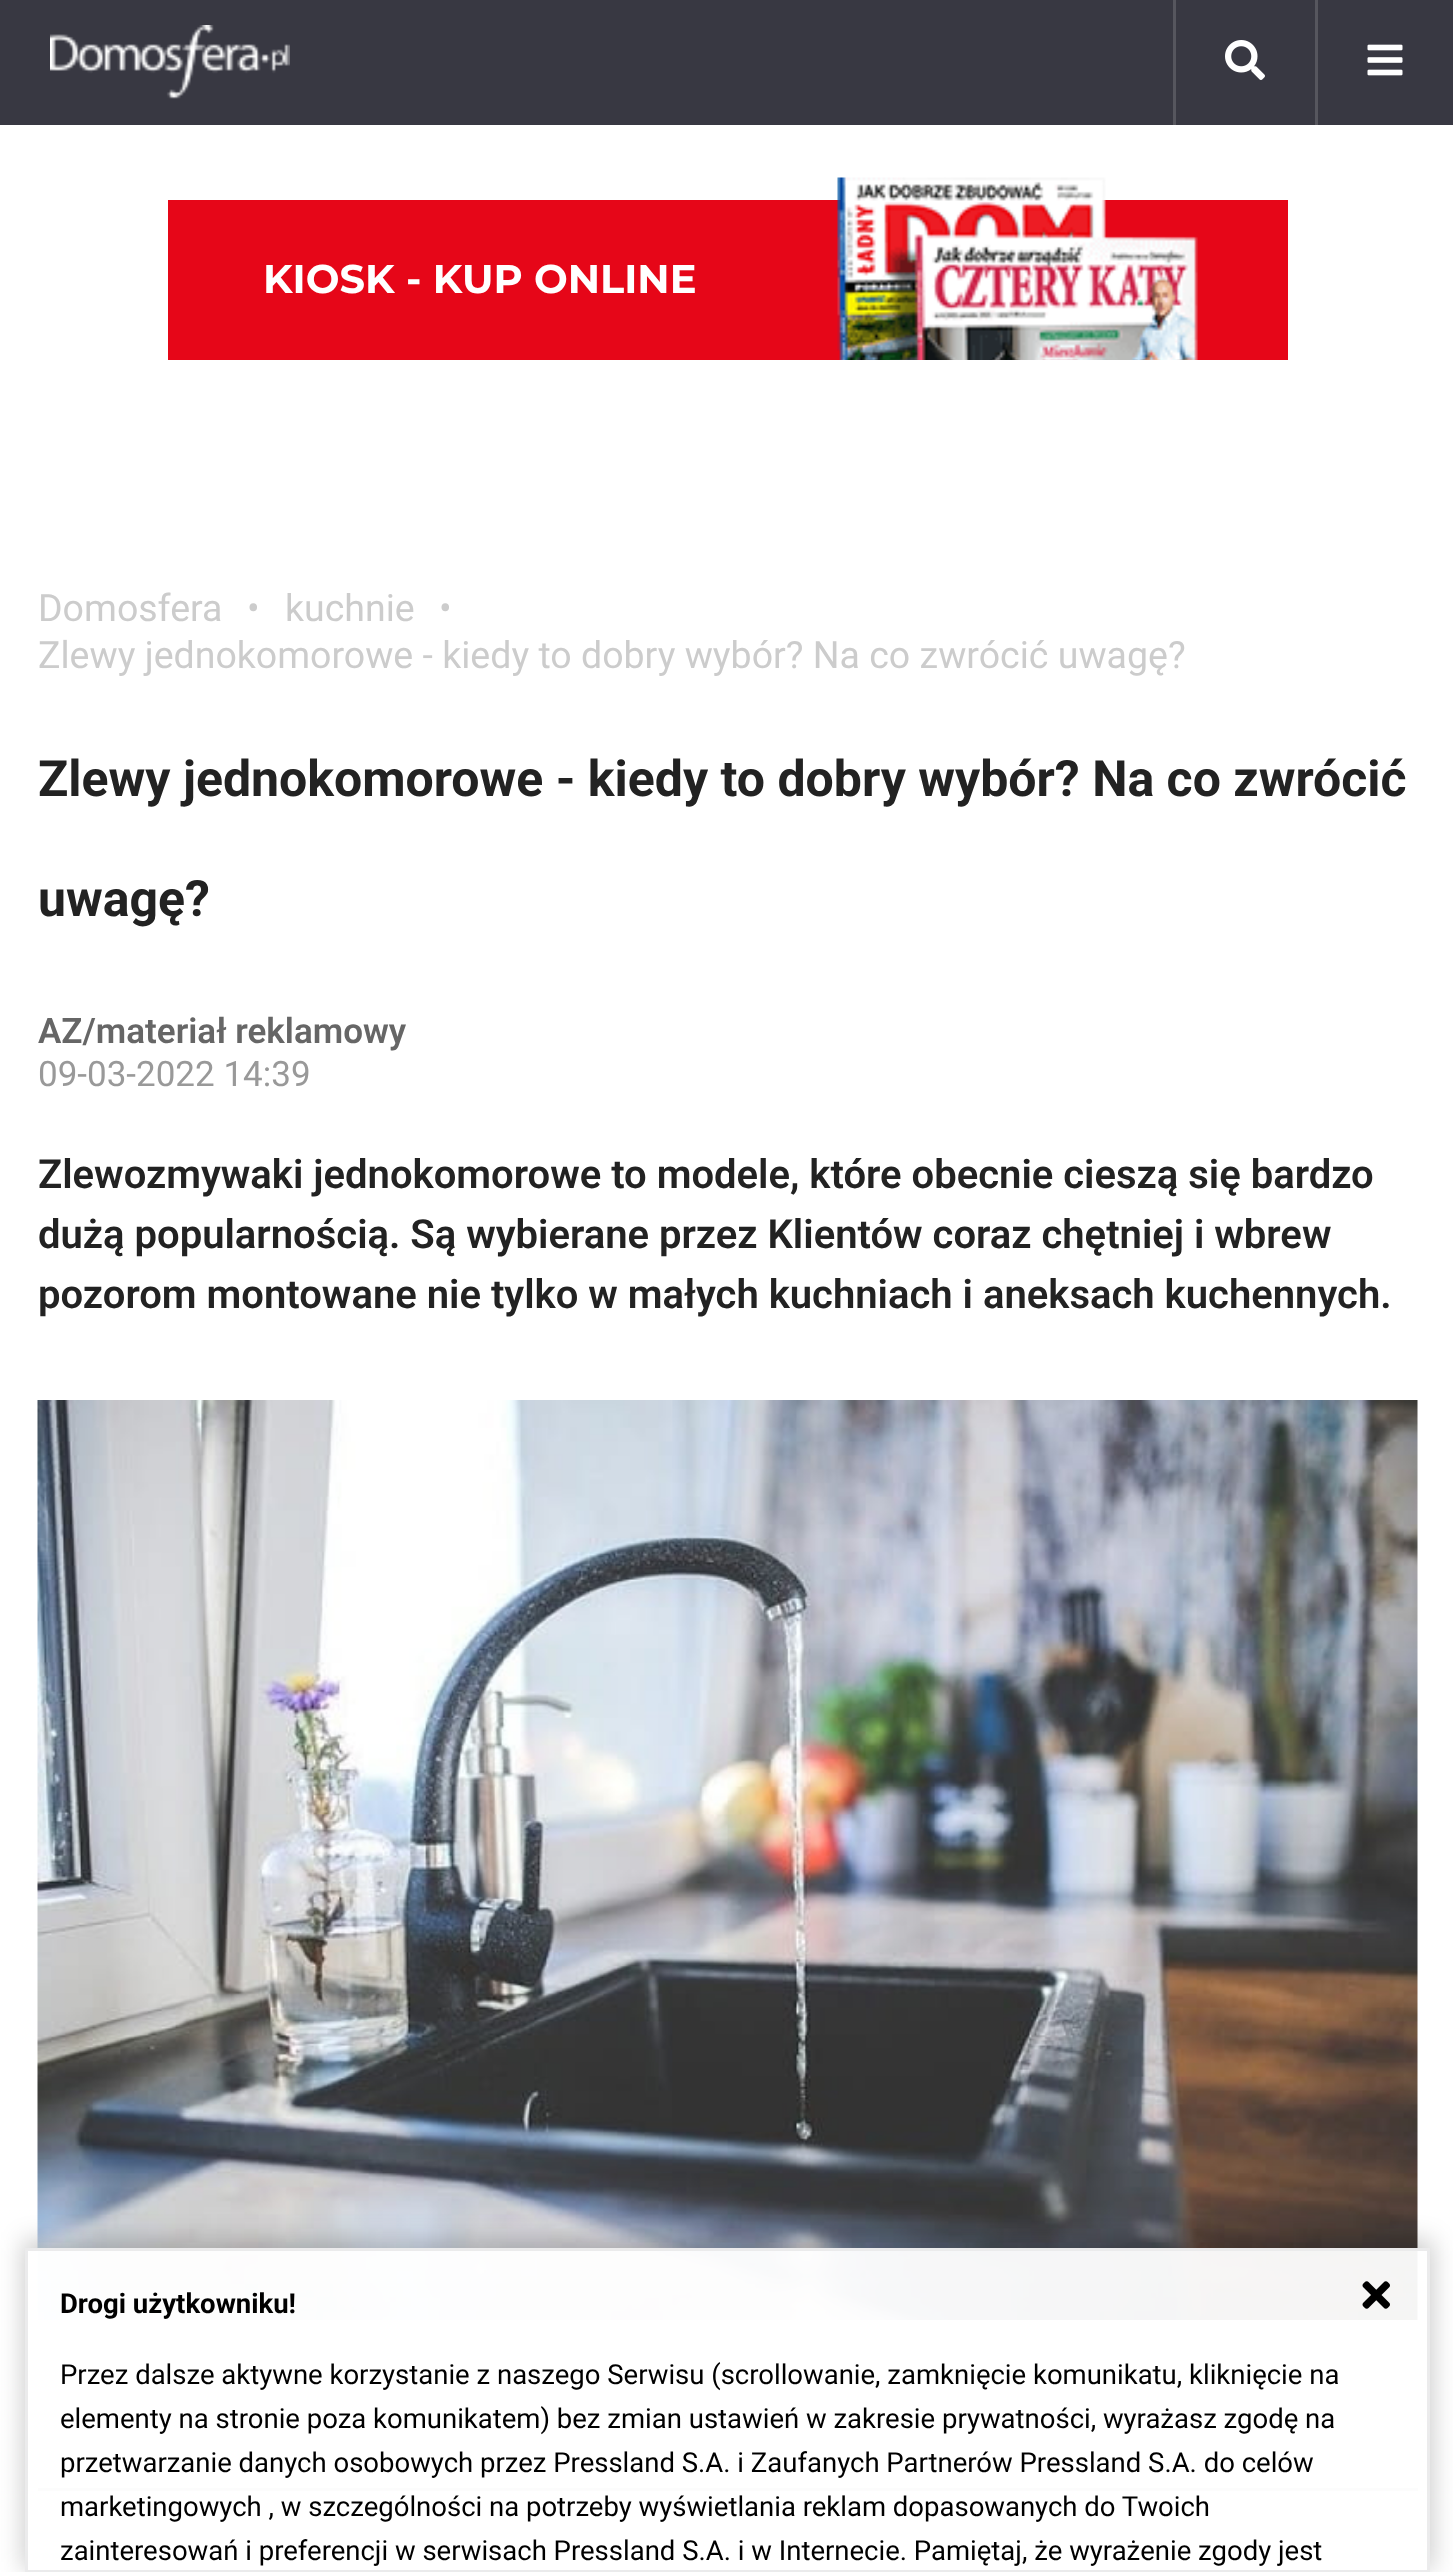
<svg xmlns="http://www.w3.org/2000/svg" width="1453" height="2572" viewBox="0 0 1453 2572">
  <defs>
    <clipPath id="clip1"><path d="M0 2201H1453V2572H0ZM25 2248H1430V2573H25Z" clip-rule="evenodd"/></clipPath>
    <filter id="blur1" x="-50%" y="-200%" width="200%" height="500%"><feGaussianBlur stdDeviation="12.5"/></filter>
  </defs>
  <rect width="100%" height="100%" fill="#ffffff"/>
  <rect x="0" y="0" width="1453" height="125" fill="#383842"/>
  <image x="50" y="25" width="240" height="74" href="img1.png"/>
  <rect x="1173" y="0" width="3" height="125" fill="#56565e"/>
  <image x="1225" y="40" width="40" height="40" href="img2.png"/>
  <rect x="1315" y="0" width="3" height="125" fill="#56565e"/>
  <image x="1367" y="44" width="36" height="32" href="img3.png"/>
  <rect x="168" y="200" width="1120" height="160" fill="#e60618"/>
  <text x="263" y="293" font-family="Montserrat" font-size="40" font-weight="bold" fill="#ffffff">KIOSK - KUP ONLINE</text>
  <image x="837" y="177" width="361" height="183" href="img4.png"/>
  <text x="38" y="621" font-family="Roboto" font-size="37.5" fill="#cccccc">Domosfera</text>
  <text x="247" y="621" font-family="Roboto" font-size="37.5" fill="#cccccc">•</text>
  <text x="285" y="621" font-family="Roboto" font-size="37.5" fill="#cccccc">kuchnie</text>
  <text x="439" y="621" font-family="Roboto" font-size="37.5" fill="#cccccc">•</text>
  <text x="38" y="668" font-family="Roboto" font-size="37.5" fill="#cccccc">Zlewy jednokomorowe - kiedy to dobry wybór? Na co zwrócić uwagę?</text>
  <text x="38" y="796" font-family="Roboto" font-size="50" font-weight="bold" fill="#222222">Zlewy jednokomorowe - kiedy to dobry wybór? Na co zwrócić</text>
  <text x="38" y="916" font-family="Roboto" font-size="50" font-weight="bold" fill="#222222">uwagę?</text>
  <text x="38" y="1043" font-family="Roboto" font-size="35" font-weight="600" fill="#666666">AZ/materiał reklamowy</text>
  <text x="38" y="1086" font-family="Roboto" font-size="35" fill="#999999">09-03-2022 14:39</text>
  <text x="38" y="1188" font-family="Roboto" font-size="40" font-weight="600" fill="#222222">Zlewozmywaki jednokomorowe to modele, które obecnie cieszą się bardzo</text>
  <text x="38" y="1248" font-family="Roboto" font-size="40" font-weight="600" fill="#222222">dużą popularnością. Są wybierane przez Klientów coraz chętniej i wbrew</text>
  <text x="38" y="1308" font-family="Roboto" font-size="40" font-weight="600" fill="#222222">pozorom montowane nie tylko w małych kuchniach i aneksach kuchennych.</text>
  <image x="37" y="1400" width="1381" height="920" href="img5.png"/>
  <rect x="38" y="2488" width="1380" height="3" fill="#bbbbbb"/>
  <g clip-path="url(#clip1)">
    <rect x="23" y="2240" width="1410" height="330" fill="#000000" fill-opacity="0.2" filter="url(#blur1)"/>
  </g>
  <rect x="37" y="2251" width="1381" height="240" fill="#ffffff" fill-opacity="0.95"/>
  <rect x="26.5" y="2249.5" width="1402" height="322" fill="none" stroke="#ebebec" stroke-width="3"/>
  <text x="60" y="2313" font-family="Roboto" font-size="27.5" font-weight="bold" fill="#000000">Drogi użytkowniku!</text>
  <image x="1362" y="2281" width="28" height="28" href="img6.png"/>
  <text x="60" y="2384" font-family="Roboto" font-size="27.5" fill="#000000">Przez dalsze aktywne korzystanie z naszego Serwisu (scrollowanie, zamknięcie komunikatu, kliknięcie na</text>
  <text x="60" y="2428" font-family="Roboto" font-size="27.5" fill="#000000">elementy na stronie poza komunikatem) bez zmian ustawień w zakresie prywatności, wyrażasz zgodę na</text>
  <text x="60" y="2472" font-family="Roboto" font-size="27.5" fill="#000000">przetwarzanie danych osobowych przez Pressland S.A. i Zaufanych Partnerów Pressland S.A. do celów</text>
  <text x="60" y="2516" font-family="Roboto" font-size="27.5" fill="#000000">marketingowych , w szczególności na potrzeby wyświetlania reklam dopasowanych do Twoich</text>
  <text x="60" y="2560" font-family="Roboto" font-size="27.5" fill="#000000">zainteresowań i preferencji w serwisach Pressland S.A. i w Internecie. Pamiętaj, że wyrażenie zgody jest</text>
</svg>
